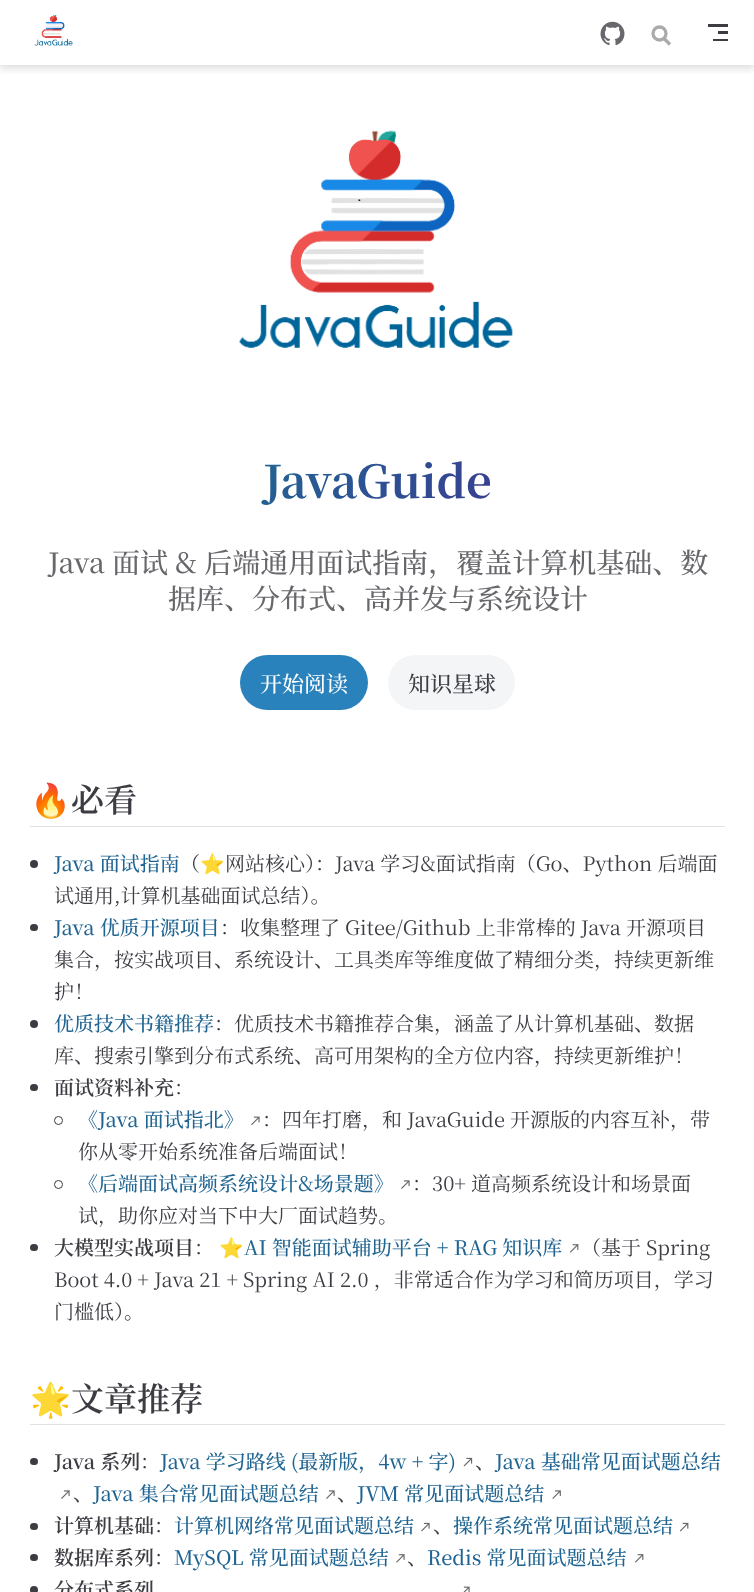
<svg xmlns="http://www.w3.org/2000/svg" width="754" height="1592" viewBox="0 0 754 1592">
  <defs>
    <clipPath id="clip1"><rect x="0" y="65" width="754" height="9"/></clipPath>
    <filter id="blur1" x="-50%" y="-200%" width="200%" height="500%"><feGaussianBlur stdDeviation="5"/></filter>
    <linearGradient id="g1" gradientUnits="userSpaceOnUse" x1="110" y1="324" x2="645" y2="633"><stop offset="0" stop-color="#2e90d1"/><stop offset="0.3" stop-color="#206592"/><stop offset="1" stop-color="#4d2092"/></linearGradient>
  </defs>
  <rect width="100%" height="100%" fill="#ffffff"/>
  <g clip-path="url(#clip1)">
    <rect x="0" y="3" width="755" height="65" fill="#000000" fill-opacity="0.15" filter="url(#blur1)"/>
  </g>
  <image x="34" y="14" width="39" height="32" href="img1.png"/>
  <image x="600" y="21" width="25" height="25" href="img2.png"/>
  <path d="M670 44.5L663.5 38" fill="none" stroke="#aaaaaa" stroke-width="3.3"/>
  <circle cx="659.5" cy="33.5" r="6.5" fill="none" stroke="#aaaaaa" stroke-width="3.3"/>
  <rect x="708" y="24" width="20" height="3" fill="#3c3c43"/>
  <rect x="718" y="31" width="10" height="3" fill="#3c3c43"/>
  <rect x="713" y="39" width="15" height="2" fill="#3c3c43"/>
  <image x="239" y="130" width="274" height="218" href="img3.png"/>
  <text x="263" y="498" font-family="Noto Serif SC" font-size="45" font-weight="bold" fill="url(#g1)">JavaGuide</text>
  <text x="48" y="573" font-family="Noto Serif SC" font-size="28" font-weight="500" fill="#67676c">Java 面试 &amp; 后端通用面试指南，覆盖计算机基础、数</text>
  <text x="168" y="609" font-family="Noto Serif SC" font-size="28" font-weight="500" fill="#67676c">据库、分布式、高并发与系统设计</text>
  <rect x="240" y="655" width="128" height="55" rx="27.5" fill="#2a82bc"/>
  <text x="260" y="692" font-family="Noto Serif SC" font-size="22" font-weight="500" fill="#ffffff">开始阅读</text>
  <rect x="388" y="655" width="127" height="55" rx="27.5" fill="#f4f5f7"/>
  <text x="408" y="692" font-family="Noto Serif SC" font-size="22" font-weight="500" fill="#3c3c43">知识星球</text>
  <rect x="30" y="826" width="695" height="1" fill="#e2e2e3"/>
  <text x="30" y="812" font-family="Noto Color Emoji" font-size="33" fill="#3c3c43">🔥</text>
  <text x="71" y="812" font-family="Noto Serif SC" font-size="33" font-weight="600" fill="#3c3c43">必看</text>
  <circle cx="34" cy="864" r="4" fill="#3c3c43"/>
  <text x="54" y="871" font-family="Noto Serif SC" font-size="20" font-weight="500" fill="#206592">Java 面试指南</text>
  <text x="180" y="871" font-family="Noto Serif SC" font-size="20" fill="#3c3c43">（</text>
  <text x="200" y="871" font-family="Noto Color Emoji" font-size="20" fill="#3c3c43">⭐</text>
  <text x="225" y="871" font-family="Noto Serif SC" font-size="20" fill="#3c3c43">网站核心）：Java 学习&amp;面试指南（Go、Python 后端面</text>
  <text x="54" y="903" font-family="Noto Serif SC" font-size="20" fill="#3c3c43">试通用,计算机基础面试总结）。</text>
  <rect x="30" y="924" width="8" height="7" rx="3.5" fill="#3c3c43"/>
  <text x="54" y="935" font-family="Noto Serif SC" font-size="20" font-weight="500" fill="#206592">Java 优质开源项目</text>
  <text x="220" y="935" font-family="Noto Serif SC" font-size="20" fill="#3c3c43">：收集整理了 Gitee/Github 上非常棒的 Java 开源项目</text>
  <text x="54" y="967" font-family="Noto Serif SC" font-size="20" fill="#3c3c43">集合，按实战项目、系统设计、工具类库等维度做了精细分类，持续更新维</text>
  <text x="54" y="999" font-family="Noto Serif SC" font-size="20" fill="#3c3c43">护！</text>
  <circle cx="34" cy="1024" r="4" fill="#3c3c43"/>
  <text x="54" y="1031" font-family="Noto Serif SC" font-size="20" font-weight="500" fill="#206592">优质技术书籍推荐</text>
  <text x="214" y="1031" font-family="Noto Serif SC" font-size="20" fill="#3c3c43">：优质技术书籍推荐合集，涵盖了从计算机基础、数据</text>
  <text x="54" y="1063" font-family="Noto Serif SC" font-size="20" fill="#3c3c43">库、搜索引擎到分布式系统、高可用架构的全方位内容，持续更新维护！</text>
  <rect x="30" y="1084" width="8" height="7" rx="3.5" fill="#3c3c43"/>
  <text x="54" y="1095" font-family="Noto Serif SC" font-size="20" font-weight="600" fill="#3c3c43">面试资料补充</text>
  <text x="174" y="1095" font-family="Noto Serif SC" font-size="20" fill="#3c3c43">：</text>
  <circle cx="58.5" cy="1120.5" r="4" fill="none" stroke="#3c3c43"/>
  <text x="78" y="1127" font-family="Noto Serif SC" font-size="20" font-weight="500" fill="#206592">《Java 面试指北》</text>
  <image x="251" y="1116" width="9" height="10" href="img4.png"/>
  <text x="262" y="1127" font-family="Noto Serif SC" font-size="20" fill="#3c3c43">：四年打磨，和 JavaGuide 开源版的内容互补，带</text>
  <text x="78" y="1159" font-family="Noto Serif SC" font-size="20" fill="#3c3c43">你从零开始系统准备后端面试！</text>
  <circle cx="58.5" cy="1184.5" r="4" fill="none" stroke="#3c3c43"/>
  <text x="78" y="1191" font-family="Noto Serif SC" font-size="20" font-weight="500" fill="#206592">《后端面试高频系统设计&amp;场景题》</text>
  <image x="401" y="1180" width="9" height="9" href="img5.png"/>
  <text x="412" y="1191" font-family="Noto Serif SC" font-size="20" fill="#3c3c43">：30+ 道高频系统设计和场景面</text>
  <text x="78" y="1223" font-family="Noto Serif SC" font-size="20" fill="#3c3c43">试，助你应对当下中大厂面试趋势。</text>
  <rect x="30" y="1244" width="8" height="7" rx="3.5" fill="#3c3c43"/>
  <text x="54" y="1255" font-family="Noto Serif SC" font-size="20" font-weight="600" fill="#3c3c43">大模型实战项目</text>
  <text x="194" y="1255" font-family="Noto Serif SC" font-size="20" fill="#3c3c43">：</text>
  <text x="219" y="1255" font-family="Noto Color Emoji" font-size="20" fill="#206592">⭐</text>
  <text x="244" y="1255" font-family="Noto Serif SC" font-size="20" font-weight="500" fill="#206592">AI 智能面试辅助平台 + RAG 知识库</text>
  <image x="569" y="1244" width="10" height="9" href="img6.png"/>
  <text x="581" y="1255" font-family="Noto Serif SC" font-size="20" fill="#3c3c43">（基于 Spring</text>
  <text x="54" y="1287" font-family="Noto Serif SC" font-size="20" fill="#3c3c43">Boot 4.0 + Java 21 + Spring AI 2.0 ，非常适合作为学习和简历项目，学习</text>
  <text x="54" y="1319" font-family="Noto Serif SC" font-size="20" fill="#3c3c43">门槛低）。</text>
  <rect x="30" y="1424" width="695" height="1" fill="#e2e2e3"/>
  <text x="30" y="1411" font-family="Noto Color Emoji" font-size="33" fill="#3c3c43">🌟</text>
  <text x="71" y="1411" font-family="Noto Serif SC" font-size="33" font-weight="600" fill="#3c3c43">文章推荐</text>
  <rect x="30" y="1458" width="8" height="7" rx="3.5" fill="#3c3c43"/>
  <text x="54" y="1469" font-family="Noto Serif SC" font-size="20" font-weight="600" fill="#3c3c43">Java 系列</text>
  <text x="140" y="1469" font-family="Noto Serif SC" font-size="20" fill="#3c3c43">：</text>
  <text x="160" y="1469" font-family="Noto Serif SC" font-size="20" font-weight="500" fill="#206592">Java 学习路线 (最新版，4w + 字)</text>
  <image x="463" y="1457" width="10" height="10" href="img7.png"/>
  <text x="495" y="1469" font-family="Noto Serif SC" font-size="20" font-weight="500" fill="#206592">Java 基础常见面试题总结</text>
  <image x="61" y="1490" width="9" height="9" href="img5.png"/>
  <text x="475" y="1469" font-family="Noto Serif SC" font-size="20" fill="#3c3c43">、</text>
  <text x="73" y="1501" font-family="Noto Serif SC" font-size="20" fill="#3c3c43">、</text>
  <text x="93" y="1501" font-family="Noto Serif SC" font-size="20" font-weight="500" fill="#206592">Java 集合常见面试题总结</text>
  <image x="326" y="1490" width="9" height="9" href="img5.png"/>
  <text x="337" y="1501" font-family="Noto Serif SC" font-size="20" fill="#3c3c43">、</text>
  <text x="357" y="1501" font-family="Noto Serif SC" font-size="20" font-weight="500" fill="#206592">JVM 常见面试题总结</text>
  <image x="552" y="1490" width="9" height="9" href="img8.png"/>
  <rect x="30" y="1523" width="8" height="7" rx="3.5" fill="#3c3c43"/>
  <text x="54" y="1533" font-family="Noto Serif SC" font-size="20" font-weight="600" fill="#3c3c43">计算机基础</text>
  <text x="154" y="1533" font-family="Noto Serif SC" font-size="20" fill="#3c3c43">：</text>
  <text x="174" y="1533" font-family="Noto Serif SC" font-size="20" font-weight="500" fill="#206592">计算机网络常见面试题总结</text>
  <image x="421" y="1522" width="9" height="10" href="img9.png"/>
  <text x="453" y="1533" font-family="Noto Serif SC" font-size="20" font-weight="500" fill="#206592">操作系统常见面试题总结</text>
  <image x="679" y="1522" width="10" height="10" href="img10.png"/>
  <text x="433" y="1533" font-family="Noto Serif SC" font-size="20" fill="#3c3c43">、</text>
  <rect x="30" y="1554" width="8" height="7" rx="3.5" fill="#3c3c43"/>
  <text x="54" y="1565" font-family="Noto Serif SC" font-size="20" font-weight="600" fill="#3c3c43">数据库系列</text>
  <text x="154" y="1565" font-family="Noto Serif SC" font-size="20" fill="#3c3c43">：</text>
  <text x="174" y="1565" font-family="Noto Serif SC" font-size="20" font-weight="500" fill="#206592">MySQL 常见面试题总结</text>
  <image x="396" y="1554" width="9" height="9" href="img11.png"/>
  <text x="427" y="1565" font-family="Noto Serif SC" font-size="20" font-weight="500" fill="#206592">Redis 常见面试题总结</text>
  <image x="634" y="1554" width="10" height="9" href="img6.png"/>
  <text x="407" y="1565" font-family="Noto Serif SC" font-size="20" fill="#3c3c43">、</text>
  <circle cx="34" cy="1590" r="4" fill="#3c3c43"/>
  <text x="54" y="1597" font-family="Noto Serif SC" font-size="20" font-weight="600" fill="#3c3c43">分布式系列</text>
  <image x="463" y="1586" width="7" height="6" href="img12.png"/>
</svg>
